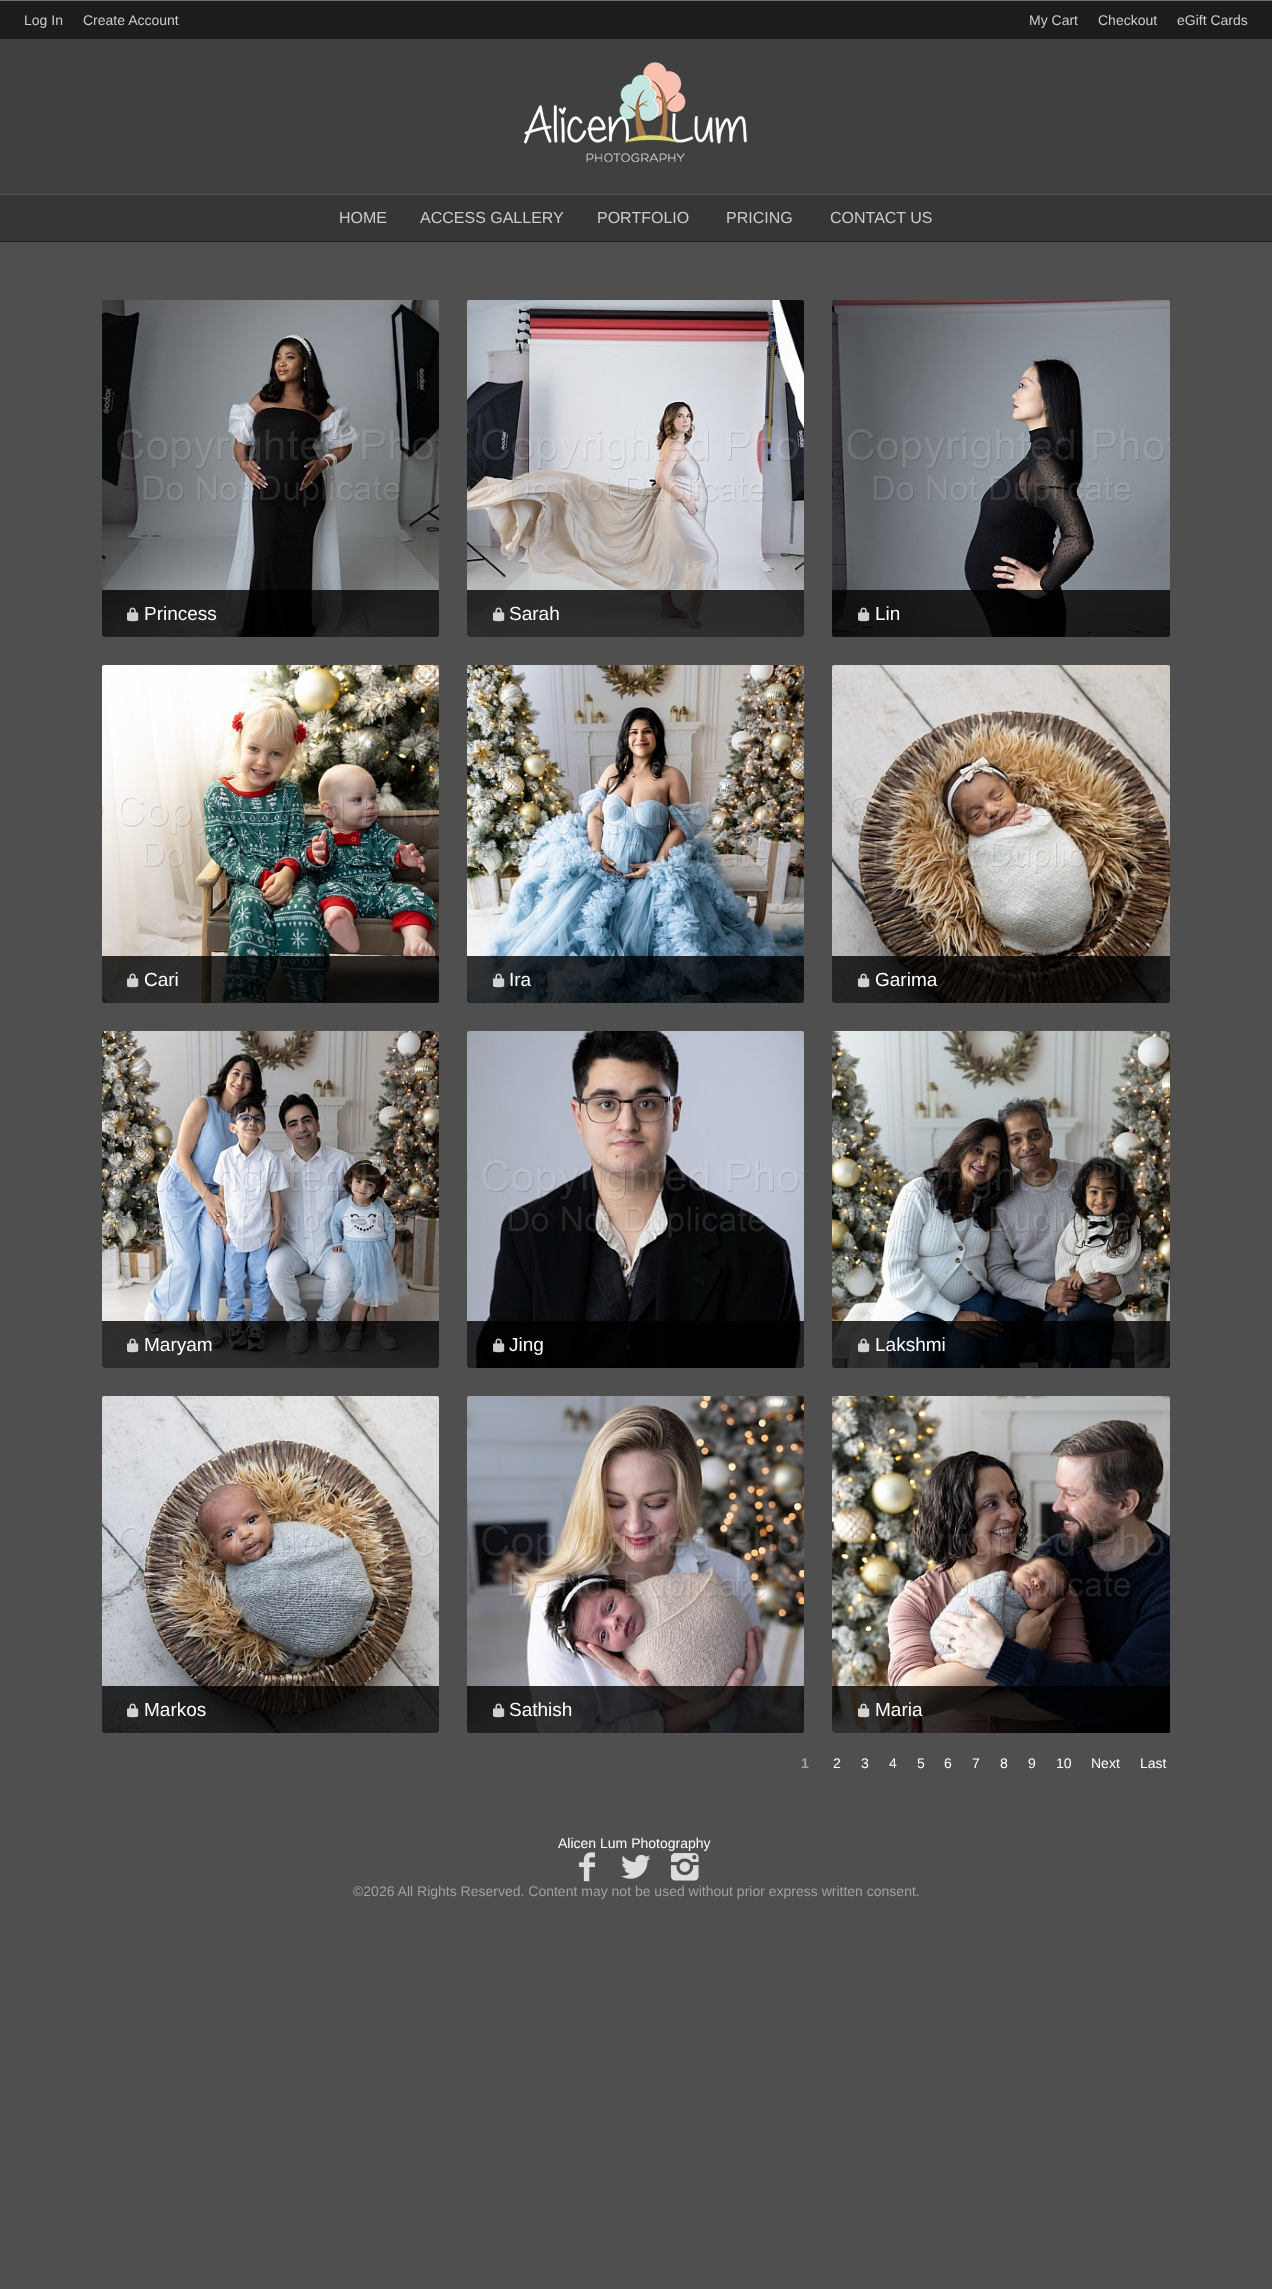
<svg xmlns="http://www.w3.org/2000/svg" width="1272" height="2289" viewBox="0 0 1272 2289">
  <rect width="100%" height="100%" fill="#4f4f4f"/>
  <rect x="0" y="1" width="1272" height="38" fill="#1c1c1c"/>
  <rect x="0" y="0" width="1272" height="1" fill="#707070"/>
  <rect x="0" y="39" width="1272" height="1" fill="#424242"/>
  <text x="24" y="25" font-family="Liberation Sans" font-size="14" fill="#cccccc">Log In</text>
  <text x="83" y="25" font-family="Liberation Sans" font-size="14" fill="#cccccc">Create Account</text>
  <text x="1029" y="25" font-family="Liberation Sans" font-size="14" fill="#cccccc">My Cart</text>
  <text x="1098" y="25" font-family="Liberation Sans" font-size="14" fill="#cccccc">Checkout</text>
  <text x="1177" y="25" font-family="Liberation Sans" font-size="14" fill="#cccccc">eGift Cards</text>
  <rect x="0" y="40" width="1272" height="154" fill="#404040"/>
  <image x="524" y="62" width="223" height="100" href="img1.png"/>
  <rect x="0" y="195" width="1272" height="46" fill="#363636"/>
  <rect x="0" y="194" width="1272" height="1" fill="#525252"/>
  <rect x="0" y="241" width="1272" height="1" fill="#1c1c1c"/>
  <text x="339" y="223" font-family="Liberation Sans" font-size="16" fill="#cccccc">HOME</text>
  <text x="420" y="223" font-family="Liberation Sans" font-size="16" fill="#cccccc">ACCESS GALLERY</text>
  <text x="597" y="223" font-family="Liberation Sans" font-size="16" fill="#cccccc">PORTFOLIO</text>
  <text x="726" y="223" font-family="Liberation Sans" font-size="16" fill="#cccccc">PRICING</text>
  <text x="830" y="223" font-family="Liberation Sans" font-size="16" fill="#cccccc">CONTACT US</text>
  <image x="102" y="300" width="337" height="337" href="img2.png"/>
  <path d="M102 590H439V635C439 636 438 637 437 637H104C103 637 102 636 102 635Z" fill="#000000" fill-opacity="0.8"/>
  <image x="127" y="607" width="12" height="15" href="img3.png"/>
  <text x="144" y="620" font-family="Liberation Sans" font-size="19" fill="#ffffff">Princess</text>
  <image x="467" y="300" width="337" height="337" href="img4.png"/>
  <path d="M467 590H804V635C804 636 803 637 802 637H469C468 637 467 636 467 635Z" fill="#000000" fill-opacity="0.8"/>
  <image x="493" y="607" width="12" height="15" href="img5.png"/>
  <text x="509" y="620" font-family="Liberation Sans" font-size="19" fill="#ffffff">Sarah</text>
  <image x="832" y="300" width="338" height="337" href="img6.png"/>
  <path d="M832 590H1170V635C1170 636 1169 637 1168 637H834C833 637 832 636 832 635Z" fill="#000000" fill-opacity="0.8"/>
  <image x="858" y="607" width="12" height="15" href="img7.png"/>
  <text x="875" y="620" font-family="Liberation Sans" font-size="19" fill="#ffffff">Lin</text>
  <image x="102" y="665" width="337" height="338" href="img8.png"/>
  <path d="M102 956H439V1001C439 1002 438 1003 437 1003H104C103 1003 102 1002 102 1001Z" fill="#000000" fill-opacity="0.8"/>
  <image x="127" y="973" width="12" height="15" href="img9.png"/>
  <text x="144" y="986" font-family="Liberation Sans" font-size="19" fill="#ffffff">Cari</text>
  <image x="467" y="665" width="337" height="338" href="img10.png"/>
  <path d="M467 956H804V1001C804 1002 803 1003 802 1003H469C468 1003 467 1002 467 1001Z" fill="#000000" fill-opacity="0.8"/>
  <image x="493" y="973" width="12" height="15" href="img11.png"/>
  <text x="509" y="986" font-family="Liberation Sans" font-size="19" fill="#ffffff">Ira</text>
  <image x="832" y="665" width="338" height="338" href="img12.png"/>
  <path d="M832 956H1170V1001C1170 1002 1169 1003 1168 1003H834C833 1003 832 1002 832 1001Z" fill="#000000" fill-opacity="0.8"/>
  <image x="858" y="973" width="12" height="15" href="img13.png"/>
  <text x="875" y="986" font-family="Liberation Sans" font-size="19" fill="#ffffff">Garima</text>
  <image x="102" y="1031" width="337" height="337" href="img14.png"/>
  <path d="M102 1321H439V1366C439 1367 438 1368 437 1368H104C103 1368 102 1367 102 1366Z" fill="#000000" fill-opacity="0.8"/>
  <image x="127" y="1338" width="12" height="15" href="img15.png"/>
  <text x="144" y="1351" font-family="Liberation Sans" font-size="19" fill="#ffffff">Maryam</text>
  <image x="467" y="1031" width="337" height="337" href="img16.png"/>
  <path d="M467 1321H804V1366C804 1367 803 1368 802 1368H469C468 1368 467 1367 467 1366Z" fill="#000000" fill-opacity="0.8"/>
  <image x="493" y="1338" width="12" height="15" href="img17.png"/>
  <text x="509" y="1351" font-family="Liberation Sans" font-size="19" fill="#ffffff">Jing</text>
  <image x="832" y="1031" width="338" height="337" href="img18.png"/>
  <path d="M832 1321H1170V1366C1170 1367 1169 1368 1168 1368H834C833 1368 832 1367 832 1366Z" fill="#000000" fill-opacity="0.8"/>
  <image x="858" y="1338" width="12" height="15" href="img19.png"/>
  <text x="875" y="1351" font-family="Liberation Sans" font-size="19" fill="#ffffff">Lakshmi</text>
  <image x="102" y="1396" width="337" height="337" href="img20.png"/>
  <path d="M102 1686H439V1731C439 1732 438 1733 437 1733H104C103 1733 102 1732 102 1731Z" fill="#000000" fill-opacity="0.8"/>
  <image x="127" y="1703" width="12" height="15" href="img21.png"/>
  <text x="144" y="1716" font-family="Liberation Sans" font-size="19" fill="#ffffff">Markos</text>
  <image x="467" y="1396" width="337" height="337" href="img22.png"/>
  <path d="M467 1686H804V1731C804 1732 803 1733 802 1733H469C468 1733 467 1732 467 1731Z" fill="#000000" fill-opacity="0.8"/>
  <image x="493" y="1703" width="12" height="15" href="img23.png"/>
  <text x="509" y="1716" font-family="Liberation Sans" font-size="19" fill="#ffffff">Sathish</text>
  <image x="832" y="1396" width="338" height="337" href="img24.png"/>
  <path d="M832 1686H1170V1731C1170 1732 1169 1733 1168 1733H834C833 1733 832 1732 832 1731Z" fill="#000000" fill-opacity="0.8"/>
  <image x="858" y="1703" width="12" height="15" href="img25.png"/>
  <text x="875" y="1716" font-family="Liberation Sans" font-size="19" fill="#ffffff">Maria</text>
  <text x="801" y="1768" font-family="Liberation Sans" font-size="14" font-weight="bold" fill="#a1a1a1">1</text>
  <text x="833" y="1768" font-family="Liberation Sans" font-size="14" fill="#ffffff">2</text>
  <text x="861" y="1768" font-family="Liberation Sans" font-size="14" fill="#ffffff">3</text>
  <text x="889" y="1768" font-family="Liberation Sans" font-size="14" fill="#ffffff">4</text>
  <text x="917" y="1768" font-family="Liberation Sans" font-size="14" fill="#ffffff">5</text>
  <text x="944" y="1768" font-family="Liberation Sans" font-size="14" fill="#ffffff">6</text>
  <text x="972" y="1768" font-family="Liberation Sans" font-size="14" fill="#ffffff">7</text>
  <text x="1000" y="1768" font-family="Liberation Sans" font-size="14" fill="#ffffff">8</text>
  <text x="1028" y="1768" font-family="Liberation Sans" font-size="14" fill="#ffffff">9</text>
  <text x="1056" y="1768" font-family="Liberation Sans" font-size="14" fill="#ffffff">10</text>
  <text x="1091" y="1768" font-family="Liberation Sans" font-size="14" fill="#ffffff">Next</text>
  <text x="1140" y="1768" font-family="Liberation Sans" font-size="14" fill="#ffffff">Last</text>
  <text x="558" y="1848" font-family="Liberation Sans" font-size="14" fill="#ffffff">Alicen Lum Photography</text>
  <image x="579" y="1852" width="16" height="30" href="img26.png"/>
  <image x="621" y="1854" width="30" height="25" href="img27.png"/>
  <image x="671" y="1853" width="28" height="28" href="img28.png"/>
  <text x="353" y="1896" font-family="Liberation Sans" font-size="14" fill="#a1a1a1">©2026 All Rights Reserved. Content may not be used without prior express written consent.</text>
</svg>
